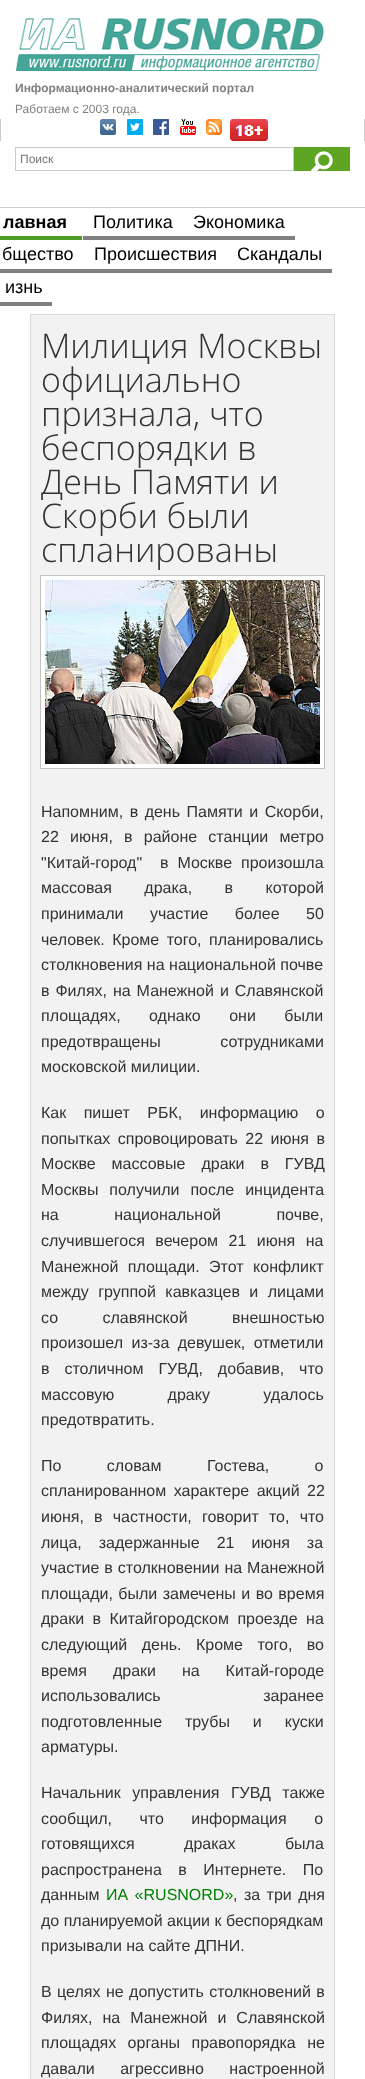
<svg xmlns="http://www.w3.org/2000/svg" width="365" height="2079" viewBox="0 0 365 2079">
  <rect width="100%" height="100%" fill="#ffffff"/>
  <image x="15" y="18" width="309" height="53" href="img1.png"/>
  <rect x="0" y="207" width="365" height="1" fill="#cccccc"/>
  <text x="15" y="92" font-family="Liberation Sans" font-size="12" font-weight="bold" fill="#808080">Информационно-аналитический портал</text>
  <text x="15" y="113" font-family="Liberation Sans" font-size="12" fill="#808080">Работаем с 2003 года.</text>
  <rect x="364" y="119" width="1" height="22" fill="#cccccc"/>
  <rect x="0" y="119" width="1" height="22" fill="#cccccc"/>
  <image x="100" y="119" width="16" height="16" href="img2.png"/>
  <image x="127" y="119" width="16" height="16" href="img3.png"/>
  <image x="153" y="119" width="16" height="16" href="img4.png"/>
  <image x="180" y="119" width="16" height="16" href="img5.png"/>
  <image x="206" y="119" width="16" height="16" href="img6.png"/>
  <image x="230" y="119" width="38" height="22" href="img7.png"/>
  <rect x="15.5" y="147.5" width="278" height="23" fill="none" stroke="#cccccc"/>
  <text x="20" y="163" font-family="Liberation Sans" font-size="12" fill="#757575">Поиск</text>
  <rect x="294" y="147" width="56" height="24" fill="#5da423"/>
  <image x="311" y="151" width="22" height="20" href="img8.png"/>
  <rect x="0" y="236" width="82" height="4" fill="#4e9c28"/>
  <text x="3" y="228" font-family="Liberation Sans" font-size="18" font-weight="bold" fill="#000000">лавная</text>
  <rect x="83" y="236" width="212" height="4" fill="#808080"/>
  <text x="93" y="228" font-family="Liberation Sans" font-size="18" fill="#000000">Политика</text>
  <text x="193" y="228" font-family="Liberation Sans" font-size="18" fill="#000000">Экономика</text>
  <rect x="0" y="269" width="332" height="4" fill="#808080"/>
  <text x="2" y="260" font-family="Liberation Sans" font-size="18" fill="#000000">бщество</text>
  <text x="94" y="260" font-family="Liberation Sans" font-size="18" fill="#000000">Происшествия</text>
  <text x="237" y="260" font-family="Liberation Sans" font-size="18" fill="#000000">Скандалы</text>
  <rect x="0" y="302" width="52" height="4" fill="#808080"/>
  <text x="5" y="293" font-family="Liberation Sans" font-size="18" fill="#000000">изнь</text>
  <rect x="30.5" y="314.5" width="304" height="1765" fill="#f2f2f2" stroke="#d9d9d9"/>
  <text x="41" y="358" font-family="Open Sans" font-size="34" font-weight="300" fill="#333333">Милиция Москвы</text>
  <text x="41" y="392" font-family="Open Sans" font-size="34" font-weight="300" fill="#333333">официально</text>
  <text x="41" y="426" font-family="Open Sans" font-size="34" font-weight="300" fill="#333333">признала, что</text>
  <text x="41" y="460" font-family="Open Sans" font-size="34" font-weight="300" fill="#333333">беспорядки в</text>
  <text x="41" y="494" font-family="Open Sans" font-size="34" font-weight="300" fill="#333333">День Памяти и</text>
  <text x="41" y="528" font-family="Open Sans" font-size="34" font-weight="300" fill="#333333">Скорби были</text>
  <text x="41" y="562" font-family="Open Sans" font-size="34" font-weight="300" fill="#333333">спланированы</text>
  <rect x="40.5" y="575.5" width="284" height="193" fill="none" stroke="#c2c2c2"/>
  <rect x="43" y="578" width="279" height="188" fill="none" stroke="#ffffff" stroke-width="4"/>
  <image x="45" y="580" width="275" height="184" href="img9.png"/>
  <text x="41" y="817" word-spacing="2" font-family="Liberation Sans" font-size="16" fill="#333333">Напомним, в день Памяти и Скорби,</text>
  <text x="41" y="842" word-spacing="6.75" font-family="Liberation Sans" font-size="16" fill="#333333">22 июня, в районе станции метро</text>
  <text x="41" y="868" word-spacing="4.5" font-family="Liberation Sans" font-size="16" fill="#333333" xml:space="preserve">"Китай-город"  в Москве произошла</text>
  <text x="41" y="893" word-spacing="28" font-family="Liberation Sans" font-size="16" fill="#333333">массовая драка, в которой</text>
  <text x="41" y="919" word-spacing="22" font-family="Liberation Sans" font-size="16" fill="#333333">принимали участие более 50</text>
  <text x="41" y="945" word-spacing="3" font-family="Liberation Sans" font-size="16" fill="#333333">человек. Кроме того, планировались</text>
  <text x="41" y="970" font-family="Liberation Sans" font-size="16" fill="#333333">столкновения на национальной почве</text>
  <text x="41" y="996" word-spacing="1.5" font-family="Liberation Sans" font-size="16" fill="#333333">в Филях, на Манежной и Славянской</text>
  <text x="41" y="1021" word-spacing="24" font-family="Liberation Sans" font-size="16" fill="#333333">площадях, однако они были</text>
  <text x="41" y="1047" word-spacing="55" font-family="Liberation Sans" font-size="16" fill="#333333">предотвращены сотрудниками</text>
  <text x="41" y="1072" font-family="Liberation Sans" font-size="16" fill="#333333">московской милиции.</text>
  <text x="41" y="1118" word-spacing="13" font-family="Liberation Sans" font-size="16" fill="#333333">Как пишет РБК, информацию о</text>
  <text x="41" y="1144" word-spacing="3" font-family="Liberation Sans" font-size="16" fill="#333333">попытках спровоцировать 22 июня в</text>
  <text x="41" y="1169" word-spacing="11.5" font-family="Liberation Sans" font-size="16" fill="#333333">Москве массовые драки в ГУВД</text>
  <text x="41" y="1195" word-spacing="6.5" font-family="Liberation Sans" font-size="16" fill="#333333">Москвы получили после инцидента</text>
  <text x="41" y="1220" word-spacing="51" font-family="Liberation Sans" font-size="16" fill="#333333">на национальной почве,</text>
  <text x="41" y="1246" word-spacing="6" font-family="Liberation Sans" font-size="16" fill="#333333">случившегося вечером 21 июня на</text>
  <text x="41" y="1272" word-spacing="5" font-family="Liberation Sans" font-size="16" fill="#333333">Манежной площади. Этот конфликт</text>
  <text x="41" y="1297" word-spacing="5" font-family="Liberation Sans" font-size="16" fill="#333333">между группой кавказцев и лицами</text>
  <text x="41" y="1323" word-spacing="40" font-family="Liberation Sans" font-size="16" fill="#333333">со славянской внешностью</text>
  <text x="41" y="1348" word-spacing="4" font-family="Liberation Sans" font-size="16" fill="#333333">произошел из-за девушек, отметили</text>
  <text x="41" y="1374" word-spacing="10.5" font-family="Liberation Sans" font-size="16" fill="#333333">в столичном ГУВД, добавив, что</text>
  <text x="41" y="1400" word-spacing="49" font-family="Liberation Sans" font-size="16" fill="#333333">массовую драку удалось</text>
  <text x="41" y="1425" font-family="Liberation Sans" font-size="16" fill="#333333">предотвратить.</text>
  <text x="41" y="1471" word-spacing="41" font-family="Liberation Sans" font-size="16" fill="#333333">По словам Гостева, о</text>
  <text x="41" y="1496" word-spacing="3" font-family="Liberation Sans" font-size="16" fill="#333333">спланированном характере акций 22</text>
  <text x="41" y="1522" word-spacing="5.75" font-family="Liberation Sans" font-size="16" fill="#333333">июня, в частности, говорит то, что</text>
  <text x="41" y="1548" word-spacing="12.5" font-family="Liberation Sans" font-size="16" fill="#333333">лица, задержанные 21 июня за</text>
  <text x="41" y="1573" word-spacing="0.5" font-family="Liberation Sans" font-size="16" fill="#333333">участие в столкновении на Манежной</text>
  <text x="41" y="1599" word-spacing="1" font-family="Liberation Sans" font-size="16" fill="#333333">площади, были замечены и во время</text>
  <text x="41" y="1624" word-spacing="4" font-family="Liberation Sans" font-size="16" fill="#333333">драки в Китайгородском проезде на</text>
  <text x="41" y="1650" word-spacing="10" font-family="Liberation Sans" font-size="16" fill="#333333">следующий день. Кроме того, во</text>
  <text x="41" y="1676" word-spacing="21.5" font-family="Liberation Sans" font-size="16" fill="#333333">время драки на Китай-городе</text>
  <text x="41" y="1701" word-spacing="98" font-family="Liberation Sans" font-size="16" fill="#333333">использовались заранее</text>
  <text x="41" y="1727" word-spacing="18.5" font-family="Liberation Sans" font-size="16" fill="#333333">подготовленные трубы и куски</text>
  <text x="41" y="1752" font-family="Liberation Sans" font-size="16" fill="#333333">арматуры.</text>
  <text x="41" y="1798" word-spacing="7" font-family="Liberation Sans" font-size="16" fill="#333333">Начальник управления ГУВД также</text>
  <text x="41" y="1824" word-spacing="23" font-family="Liberation Sans" font-size="16" fill="#333333">сообщил, что информация о</text>
  <text x="41" y="1849" word-spacing="45" font-family="Liberation Sans" font-size="16" fill="#333333">готовящихся драках была</text>
  <text x="41" y="1875" word-spacing="12" font-family="Liberation Sans" font-size="16" fill="#333333">распространена в Интернете. По</text>
  <text x="41" y="1900" font-family="Liberation Sans" font-size="16" fill="#333333">данным</text>
  <text x="106" y="1900" word-spacing="2" font-family="Liberation Sans" font-size="16" fill="#008000">ИА «RUSNORD»</text>
  <text x="233" y="1900" word-spacing="2" font-family="Liberation Sans" font-size="16" fill="#333333">, за три дня</text>
  <text x="41" y="1926" font-family="Liberation Sans" font-size="16" fill="#333333">до планируемой акции к беспорядкам</text>
  <text x="41" y="1951" font-family="Liberation Sans" font-size="16" fill="#333333">призывали на сайте ДПНИ.</text>
  <text x="41" y="1997" word-spacing="1" font-family="Liberation Sans" font-size="16" fill="#333333">В целях не допустить столкновений в</text>
  <text x="41" y="2023" word-spacing="5.5" font-family="Liberation Sans" font-size="16" fill="#333333">Филях, на Манежной и Славянской</text>
  <text x="41" y="2048" word-spacing="7" font-family="Liberation Sans" font-size="16" fill="#333333">площадях органы правопорядка не</text>
  <text x="41" y="2074" word-spacing="21" font-family="Liberation Sans" font-size="16" fill="#333333">давали агрессивно настроенной</text>
</svg>
